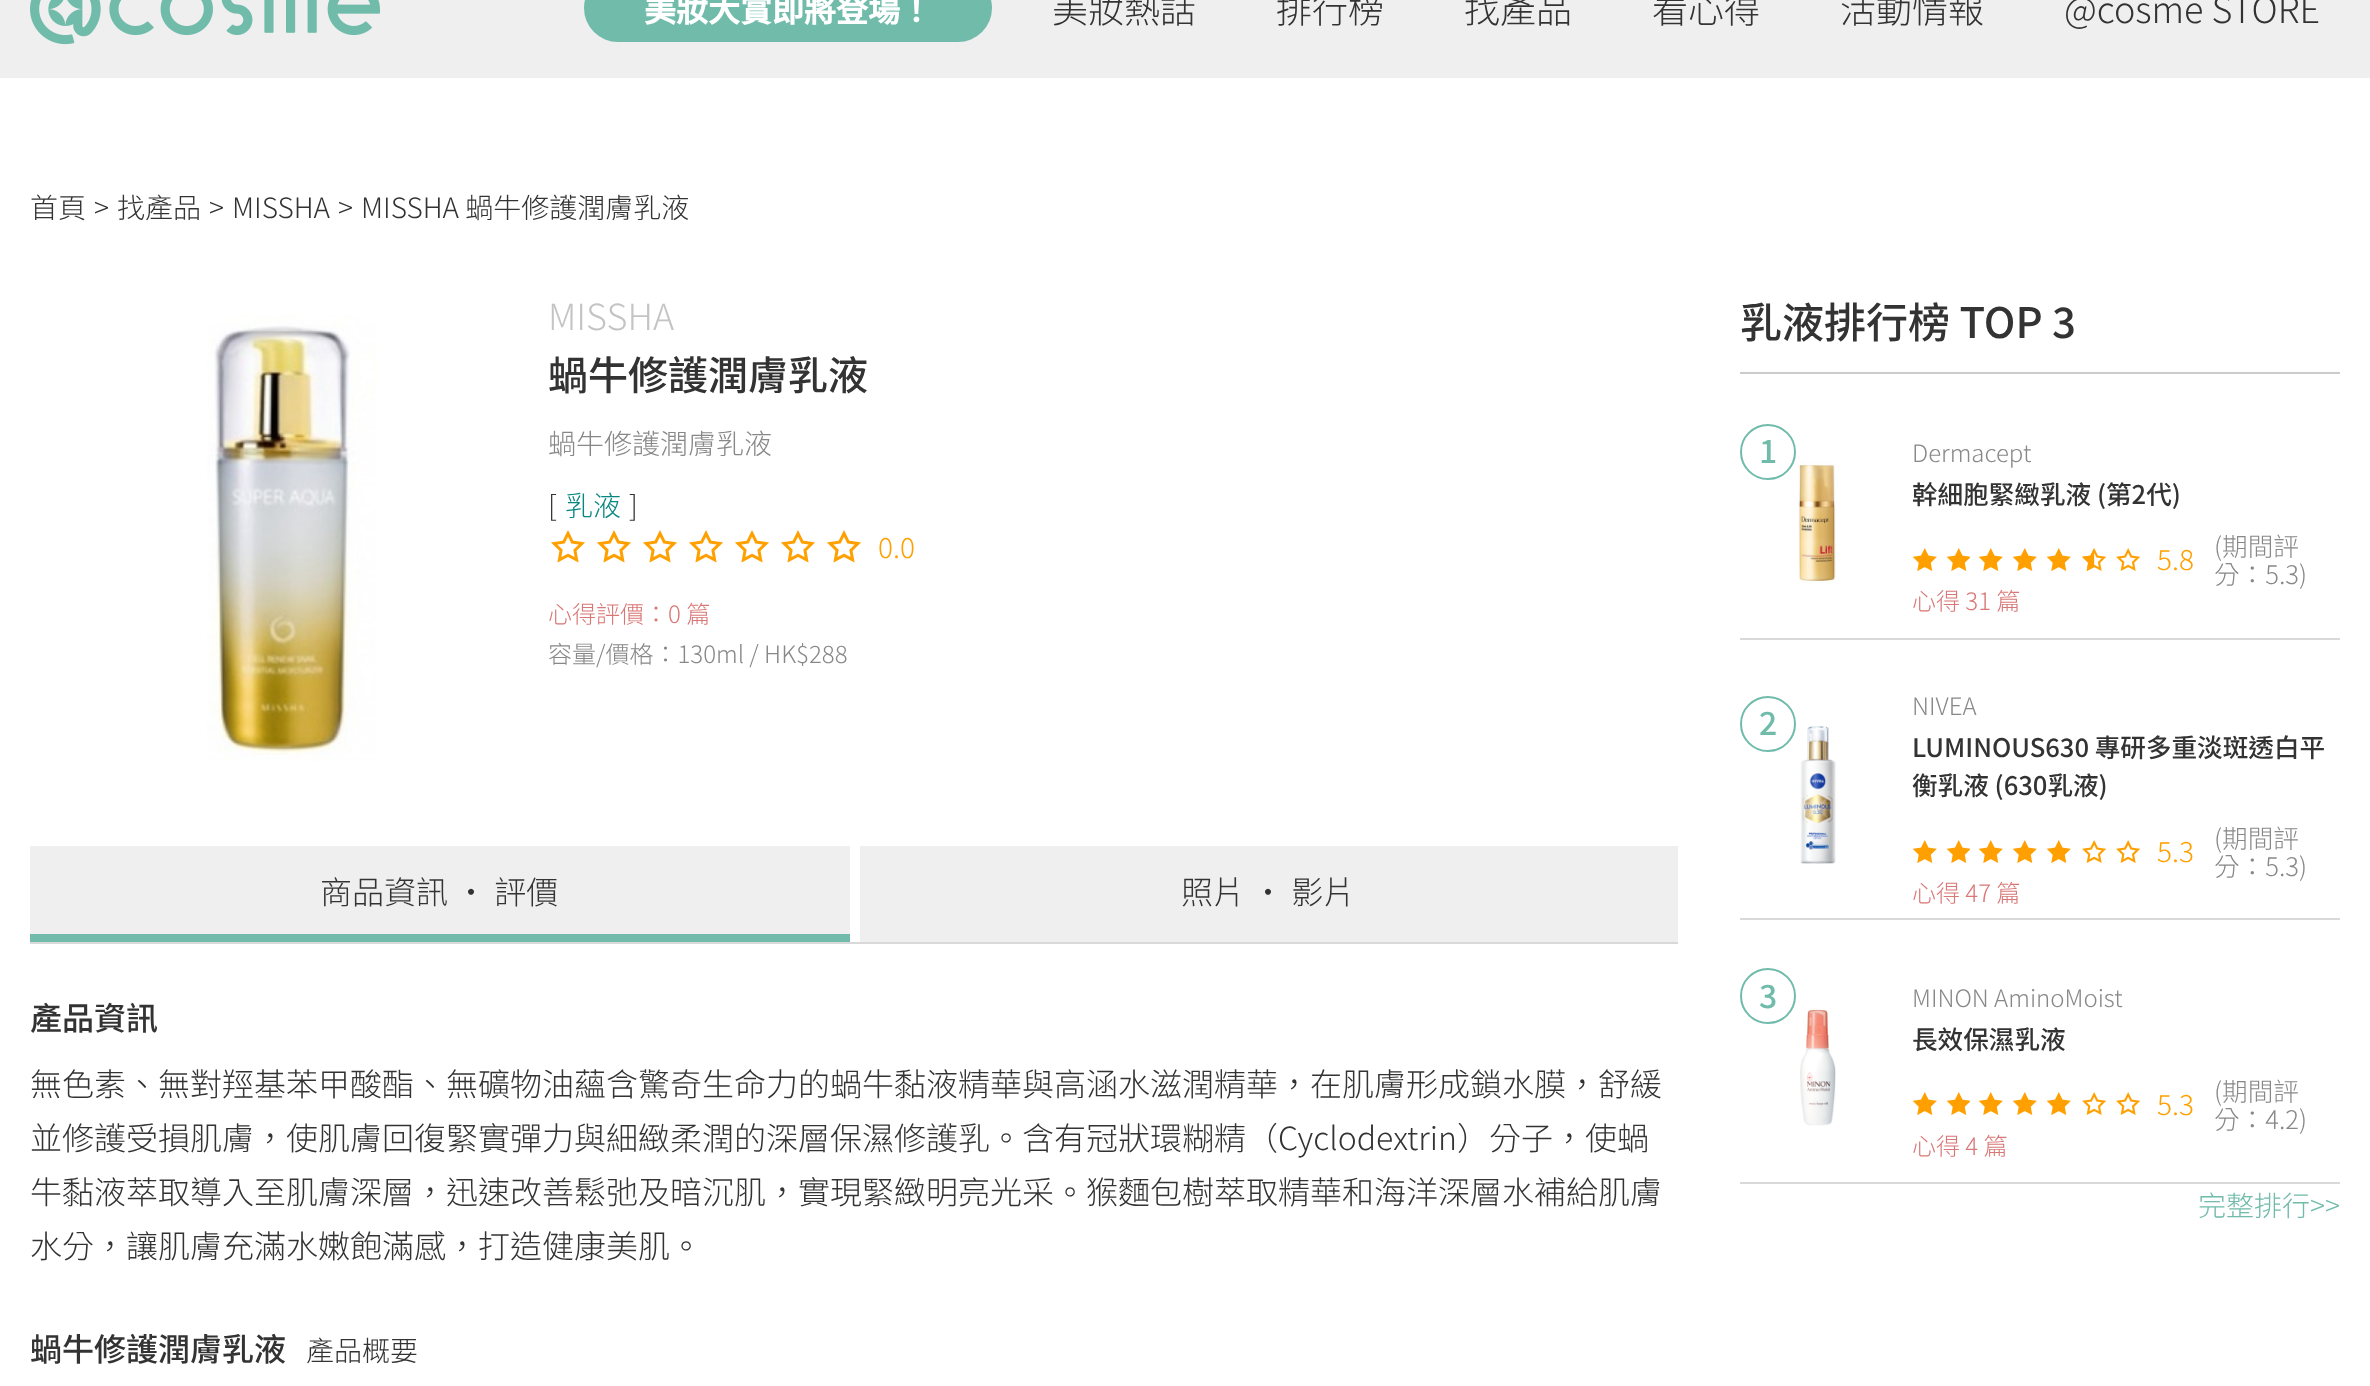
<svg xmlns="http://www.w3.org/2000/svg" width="2370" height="1386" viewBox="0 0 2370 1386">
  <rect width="100%" height="100%" fill="#ffffff"/>
  <rect x="0" y="0" width="2370" height="78" fill="#efefef"/>
  <image x="30" y="0" width="350" height="45" href="img1.png"/>
  <rect x="584" y="-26" width="408" height="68" rx="34" fill="#70bbaa"/>
  <text x="644" y="22" font-family="Noto Sans TC" font-size="32" font-weight="bold" fill="#ffffff">美妝大賞即將登場！</text>
  <text x="1052" y="23" font-family="Noto Sans TC" font-size="36" font-weight="300" fill="#333333">美妝熱話</text>
  <text x="1276" y="23" font-family="Noto Sans TC" font-size="36" font-weight="300" fill="#333333">排行榜</text>
  <text x="1464" y="23" font-family="Noto Sans TC" font-size="36" font-weight="300" fill="#333333">找產品</text>
  <text x="1652" y="23" font-family="Noto Sans TC" font-size="36" font-weight="300" fill="#333333">看心得</text>
  <text x="1840" y="23" font-family="Noto Sans TC" font-size="36" font-weight="300" fill="#333333">活動情報</text>
  <text x="2064" y="23" font-family="Noto Sans TC" font-size="36" font-weight="300" fill="#333333">@cosme STORE</text>
  <text x="30" y="218" font-family="Noto Sans TC" font-size="28" font-weight="300" fill="#333333">首頁</text>
  <text x="94" y="218" font-family="Noto Sans TC" font-size="28" font-weight="300" fill="#333333">&gt;</text>
  <text x="117" y="218" font-family="Noto Sans TC" font-size="28" font-weight="300" fill="#333333">找產品</text>
  <text x="209" y="218" font-family="Noto Sans TC" font-size="28" font-weight="300" fill="#333333">&gt;</text>
  <text x="232" y="218" font-family="Noto Sans TC" font-size="28" font-weight="300" fill="#333333">MISSHA</text>
  <text x="338" y="218" font-family="Noto Sans TC" font-size="28" font-weight="300" fill="#333333">&gt;</text>
  <text x="361" y="218" font-family="Noto Sans TC" font-size="28" font-weight="300" fill="#333333">MISSHA 蝸牛修護潤膚乳液</text>
  <image x="207" y="315" width="170" height="446" href="img2.png"/>
  <text x="548" y="330" font-family="Noto Sans TC" font-size="36" font-weight="300" fill="#c4c4c4">MISSHA</text>
  <text x="548" y="390" font-family="Noto Sans TC" font-size="40" font-weight="500" fill="#333333">蝸牛修護潤膚乳液</text>
  <text x="548" y="454" font-family="Noto Sans TC" font-size="28" font-weight="300" fill="#888888">蝸牛修護潤膚乳液</text>
  <text x="548" y="516" font-family="Noto Sans TC" font-size="28" font-weight="300" fill="#333333">[</text>
  <text x="565" y="516" font-family="Noto Sans TC" font-size="28" font-weight="300" fill="#068681">乳液</text>
  <text x="629" y="516" font-family="Noto Sans TC" font-size="28" font-weight="300" fill="#333333">]</text>
  <image x="551" y="530" width="34" height="33" href="img3.png"/>
  <image x="597" y="530" width="34" height="33" href="img3.png"/>
  <image x="643" y="530" width="34" height="33" href="img3.png"/>
  <image x="689" y="530" width="34" height="33" href="img3.png"/>
  <image x="735" y="530" width="34" height="33" href="img3.png"/>
  <image x="781" y="530" width="34" height="33" href="img3.png"/>
  <image x="827" y="530" width="34" height="33" href="img3.png"/>
  <text x="878" y="558" font-family="Noto Sans TC" font-size="28" font-weight="300" fill="#ffa000">0.0</text>
  <text x="548" y="623" font-family="Noto Sans TC" font-size="24" font-weight="300" fill="#d97777">心得評價：0 篇</text>
  <text x="548" y="663" font-family="Noto Sans TC" font-size="24" font-weight="300" fill="#888888">容量/價格：130ml / HK$288</text>
  <rect x="30" y="846" width="820" height="88" fill="#efefef"/>
  <rect x="30" y="934" width="820" height="8" fill="#70bbaa"/>
  <text x="320" y="904" font-family="Noto Sans TC" font-size="32" font-weight="300" fill="#333333">商品資訊 · 評價</text>
  <rect x="860" y="846" width="818" height="96" fill="#efefef"/>
  <text x="1181" y="904" font-family="Noto Sans TC" font-size="32" font-weight="300" fill="#333333">照片 · 影片</text>
  <rect x="30" y="942" width="1648" height="2" fill="#d9d9d9"/>
  <text x="30" y="1030" font-family="Noto Sans TC" font-size="32" font-weight="500" fill="#333333">產品資訊</text>
  <text x="30" y="1096" font-family="Noto Sans TC" font-size="32" font-weight="300" fill="#333333">無色素、無對羥基苯甲酸酯、無礦物油蘊含驚奇生命力的蝸牛黏液精華與高涵水滋潤精華，在肌膚形成鎖水膜，舒緩</text>
  <text x="30" y="1150" font-family="Noto Sans TC" font-size="32" font-weight="300" fill="#333333">並修護受損肌膚，使肌膚回復緊實彈力與細緻柔潤的深層保濕修護乳。含有冠狀環糊精（Cyclodextrin）分子，使蝸</text>
  <text x="30" y="1204" font-family="Noto Sans TC" font-size="32" font-weight="300" fill="#333333">牛黏液萃取導入至肌膚深層，迅速改善鬆弛及暗沉肌，實現緊緻明亮光采。猴麵包樹萃取精華和海洋深層水補給肌膚</text>
  <text x="30" y="1258" font-family="Noto Sans TC" font-size="32" font-weight="300" fill="#333333">水分，讓肌膚充滿水嫩飽滿感，打造健康美肌。</text>
  <text x="30" y="1361" font-family="Noto Sans TC" font-size="32" font-weight="500" fill="#333333">蝸牛修護潤膚乳液</text>
  <text x="306" y="1361" font-family="Noto Sans TC" font-size="28" font-weight="300" fill="#333333">產品概要</text>
  <rect x="1740" y="372" width="600" height="2" fill="#cccccc"/>
  <text x="1740" y="338" font-family="Noto Sans TC" font-size="42" font-weight="500" fill="#333333">乳液排行榜 TOP 3</text>
  <rect x="1740" y="638" width="600" height="2" fill="#d9d9d9"/>
  <circle cx="1768" cy="452" r="27" fill="none" stroke="#70bbaa" stroke-width="2"/>
  <text x="1759" y="463" font-family="Noto Sans TC" font-size="32" font-weight="500" fill="#70bbaa">1</text>
  <image x="1798" y="462" width="38" height="122" href="img4.png"/>
  <text x="1912" y="462" font-family="Noto Sans TC" font-size="24" font-weight="300" fill="#888888">Dermacept</text>
  <text x="1912" y="504" font-family="Noto Sans TC" font-size="25.6" font-weight="500" fill="#333333">幹細胞緊緻乳液 (第2代)</text>
  <image x="1912" y="548" width="25" height="23" href="img5.png"/>
  <image x="1946" y="548" width="24" height="23" href="img6.png"/>
  <image x="1978" y="548" width="25" height="23" href="img5.png"/>
  <image x="2012" y="548" width="25" height="23" href="img5.png"/>
  <image x="2046" y="548" width="25" height="23" href="img5.png"/>
  <image x="2082" y="548" width="24" height="23" href="img7.png"/>
  <image x="2116" y="548" width="25" height="23" href="img8.png"/>
  <text x="2157" y="570" font-family="Noto Sans TC" font-size="28" font-weight="300" fill="#ffa000">5.8</text>
  <text x="2214" y="556" font-family="Noto Sans TC" font-size="25.6" font-weight="300" fill="#888888">(期間評</text>
  <text x="2214" y="584" font-family="Noto Sans TC" font-size="25.6" font-weight="300" fill="#888888">分：5.3)</text>
  <text x="1912" y="610" font-family="Noto Sans TC" font-size="24" font-weight="300" fill="#d97777">心得 31 篇</text>
  <rect x="1740" y="918" width="600" height="2" fill="#d9d9d9"/>
  <circle cx="1768" cy="724" r="27" fill="none" stroke="#70bbaa" stroke-width="2"/>
  <text x="1759" y="735" font-family="Noto Sans TC" font-size="32" font-weight="500" fill="#70bbaa">2</text>
  <image x="1800" y="726" width="36" height="138" href="img9.png"/>
  <text x="1912" y="715" font-family="Noto Sans TC" font-size="24" font-weight="300" fill="#888888">NIVEA</text>
  <text x="1912" y="757" font-family="Noto Sans TC" font-size="25.6" font-weight="500" fill="#333333">LUMINOUS630 專研多重淡斑透白平</text>
  <text x="1912" y="795" font-family="Noto Sans TC" font-size="25.6" font-weight="500" fill="#333333">衡乳液 (630乳液)</text>
  <image x="1912" y="840" width="25" height="23" href="img5.png"/>
  <image x="1946" y="840" width="24" height="23" href="img6.png"/>
  <image x="1978" y="840" width="25" height="23" href="img5.png"/>
  <image x="2012" y="840" width="25" height="23" href="img5.png"/>
  <image x="2046" y="840" width="25" height="23" href="img5.png"/>
  <image x="2082" y="840" width="24" height="23" href="img10.png"/>
  <image x="2116" y="840" width="25" height="23" href="img8.png"/>
  <text x="2157" y="862" font-family="Noto Sans TC" font-size="28" font-weight="300" fill="#ffa000">5.3</text>
  <text x="2214" y="848" font-family="Noto Sans TC" font-size="25.6" font-weight="300" fill="#888888">(期間評</text>
  <text x="2214" y="876" font-family="Noto Sans TC" font-size="25.6" font-weight="300" fill="#888888">分：5.3)</text>
  <text x="1912" y="902" font-family="Noto Sans TC" font-size="24" font-weight="300" fill="#d97777">心得 47 篇</text>
  <rect x="1740" y="1182" width="600" height="2" fill="#d9d9d9"/>
  <circle cx="1768" cy="996" r="27" fill="none" stroke="#70bbaa" stroke-width="2"/>
  <text x="1759" y="1008" font-family="Noto Sans TC" font-size="32" font-weight="500" fill="#70bbaa">3</text>
  <image x="1800" y="1009" width="36" height="117" href="img11.png"/>
  <text x="1912" y="1007" font-family="Noto Sans TC" font-size="24" font-weight="300" fill="#888888">MINON AminoMoist</text>
  <text x="1912" y="1049" font-family="Noto Sans TC" font-size="25.6" font-weight="500" fill="#333333">長效保濕乳液</text>
  <image x="1912" y="1092" width="25" height="23" href="img5.png"/>
  <image x="1946" y="1092" width="24" height="23" href="img6.png"/>
  <image x="1978" y="1092" width="25" height="23" href="img5.png"/>
  <image x="2012" y="1092" width="25" height="23" href="img5.png"/>
  <image x="2046" y="1092" width="25" height="23" href="img5.png"/>
  <image x="2082" y="1092" width="24" height="23" href="img10.png"/>
  <image x="2116" y="1092" width="25" height="23" href="img8.png"/>
  <text x="2157" y="1115" font-family="Noto Sans TC" font-size="28" font-weight="300" fill="#ffa000">5.3</text>
  <text x="2214" y="1101" font-family="Noto Sans TC" font-size="25.6" font-weight="300" fill="#888888">(期間評</text>
  <text x="2214" y="1129" font-family="Noto Sans TC" font-size="25.6" font-weight="300" fill="#888888">分：4.2)</text>
  <text x="1912" y="1155" font-family="Noto Sans TC" font-size="24" font-weight="300" fill="#d97777">心得 4 篇</text>
  <text x="2198" y="1216" font-family="Noto Sans TC" font-size="28" font-weight="300" fill="#70bbaa">完整排行&gt;&gt;</text>
</svg>
